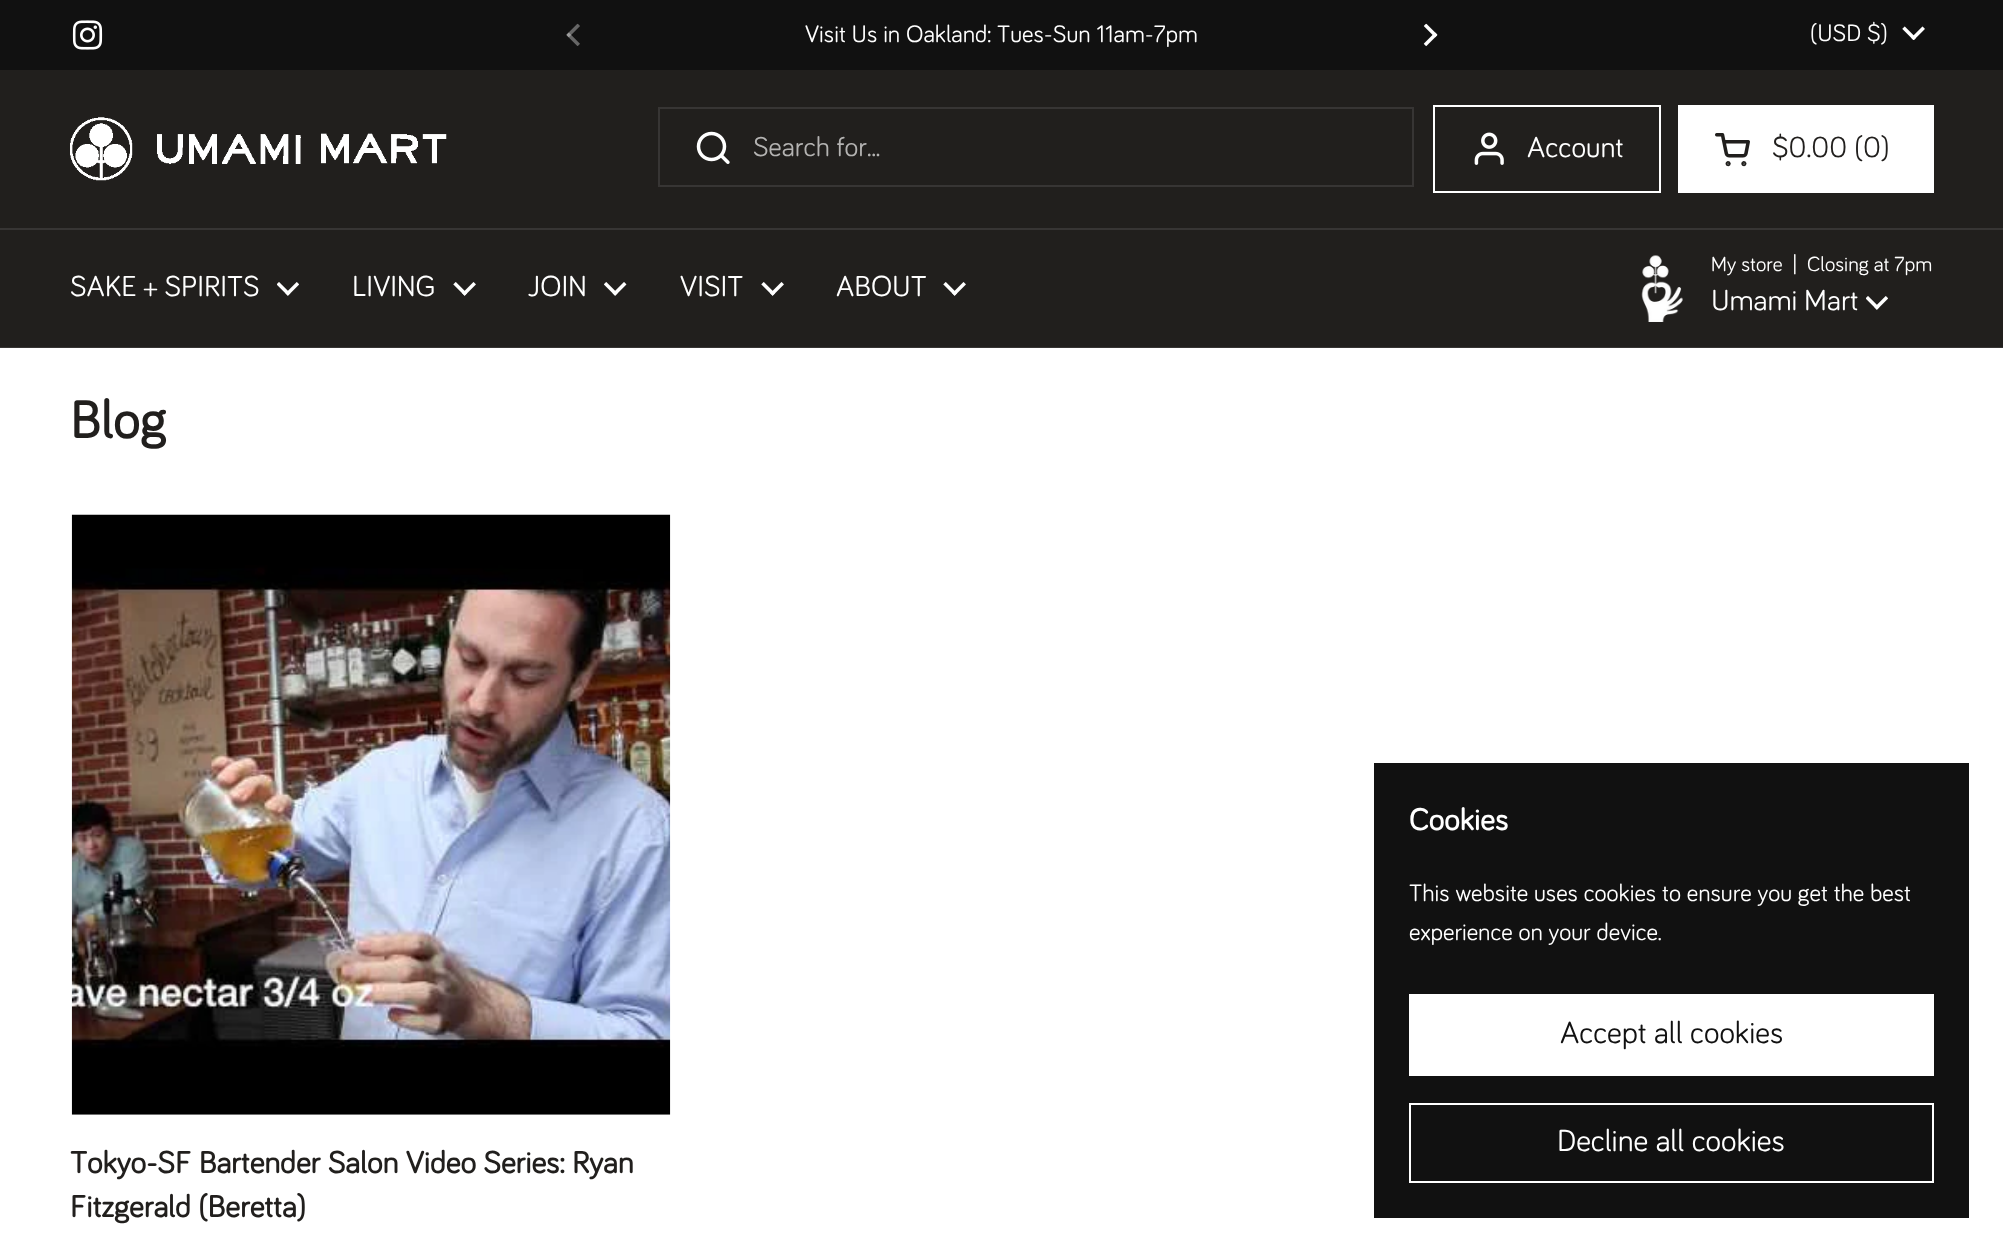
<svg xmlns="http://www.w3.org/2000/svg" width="2003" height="1253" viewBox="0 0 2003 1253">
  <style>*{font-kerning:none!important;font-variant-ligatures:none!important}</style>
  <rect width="100%" height="100%" fill="#ffffff"/>
  <rect x="0" y="0" width="2003" height="70" fill="#111111"/>
  <image x="72" y="20" width="31" height="30" href="img1.png"/>
  <image x="566" y="23" width="14" height="23" href="img2.png"/>
  <text x="805" y="42" font-family="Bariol" font-size="24.5" fill="#ffffff">Visit Us in Oakland: Tues-Sun 11am-7pm</text>
  <image x="1423" y="23" width="15" height="24" href="img3.png"/>
  <text x="1810" y="41" font-family="Bariol" font-size="24.5" fill="#ffffff">(USD $)</text>
  <image x="1902" y="26" width="23" height="14" href="img4.png"/>
  <rect x="0" y="70" width="2003" height="277" fill="#211f1d"/>
  <rect x="0" y="347" width="2003" height="1" fill="#373534"/>
  <rect x="0" y="228" width="2003" height="2" fill="#373534"/>
  <image x="70" y="117" width="377" height="64" href="img5.png"/>
  <rect x="659" y="108" width="754" height="78" fill="none" stroke="#373534" stroke-width="2"/>
  <image x="696" y="131" width="34" height="33" href="img6.png"/>
  <text x="753" y="156" font-family="Bariol" font-size="28" fill="#b4b3b2">Search for...</text>
  <rect x="1434" y="106" width="226" height="86" fill="none" stroke="#ffffff" stroke-width="2"/>
  <image x="1474" y="132" width="30" height="33" href="img7.png"/>
  <text x="1527" y="157" font-family="Bariol" font-size="29.75" fill="#ffffff">Account</text>
  <rect x="1678" y="105" width="256" height="88" fill="#ffffff"/>
  <image x="1715" y="133" width="35" height="34" href="img8.png"/>
  <text x="1772" y="157" font-family="Bariol" font-size="29.75" fill="#211f1d">$0.00 (0)</text>
  <text x="70" y="296" font-family="Bariol" font-size="29.75" fill="#ffffff">SAKE + SPIRITS</text>
  <image x="277" y="282" width="22" height="14" href="img9.png"/>
  <text x="352" y="296" font-family="Bariol" font-size="29.75" fill="#ffffff">LIVING</text>
  <image x="453" y="282" width="23" height="14" href="img10.png"/>
  <text x="528" y="296" font-family="Bariol" font-size="29.75" fill="#ffffff">JOIN</text>
  <image x="604" y="282" width="23" height="14" href="img11.png"/>
  <text x="680" y="296" font-family="Bariol" font-size="29.75" fill="#ffffff">VISIT</text>
  <image x="761" y="282" width="23" height="14" href="img10.png"/>
  <text x="836" y="296" font-family="Bariol" font-size="29.75" fill="#ffffff">ABOUT</text>
  <image x="943" y="282" width="23" height="14" href="img10.png"/>
  <image x="1641" y="255" width="42" height="67" href="img12.png"/>
  <text x="1711" y="271" font-family="Bariol" font-size="21" fill="#ffffff" xml:space="preserve">My store  |  Closing at 7pm</text>
  <text x="1711" y="310" font-family="Bariol" font-size="29.75" fill="#ffffff">Umami Mart</text>
  <image x="1866" y="296" width="22" height="14" href="img9.png"/>
  <text x="70" y="438" font-family="Bariol" font-size="54" font-weight="bold" letter-spacing="0.5" fill="#211f1d">Blog</text>
  <image x="71" y="514" width="600" height="601" href="img13.png"/>
  <text x="70" y="1173" font-family="Bariol" font-size="31.5" font-weight="bold" fill="#211f1d">Tokyo-SF Bartender Salon Video Series: Ryan</text>
  <text x="70" y="1217" font-family="Bariol" font-size="31.5" font-weight="bold" fill="#211f1d">Fitzgerald (Beretta)</text>
  <rect x="1374" y="763" width="595" height="455" fill="#111111"/>
  <text x="1409" y="830" font-family="Bariol" font-size="31" font-weight="bold" letter-spacing="0.25" fill="#ffffff">Cookies</text>
  <text x="1409" y="901" font-family="Bariol" font-size="24.5" fill="#ffffff">This website uses cookies to ensure you get the best</text>
  <text x="1409" y="940" font-family="Bariol" font-size="24.5" fill="#ffffff">experience on your device.</text>
  <rect x="1409" y="994" width="525" height="82" fill="#ffffff"/>
  <text x="1560" y="1043" font-family="Bariol" font-size="31.5" fill="#111111">Accept all cookies</text>
  <rect x="1410" y="1104" width="523" height="78" fill="none" stroke="#ffffff" stroke-width="2"/>
  <text x="1557" y="1151" font-family="Bariol" font-size="31.5" fill="#ffffff">Decline all cookies</text>
</svg>
